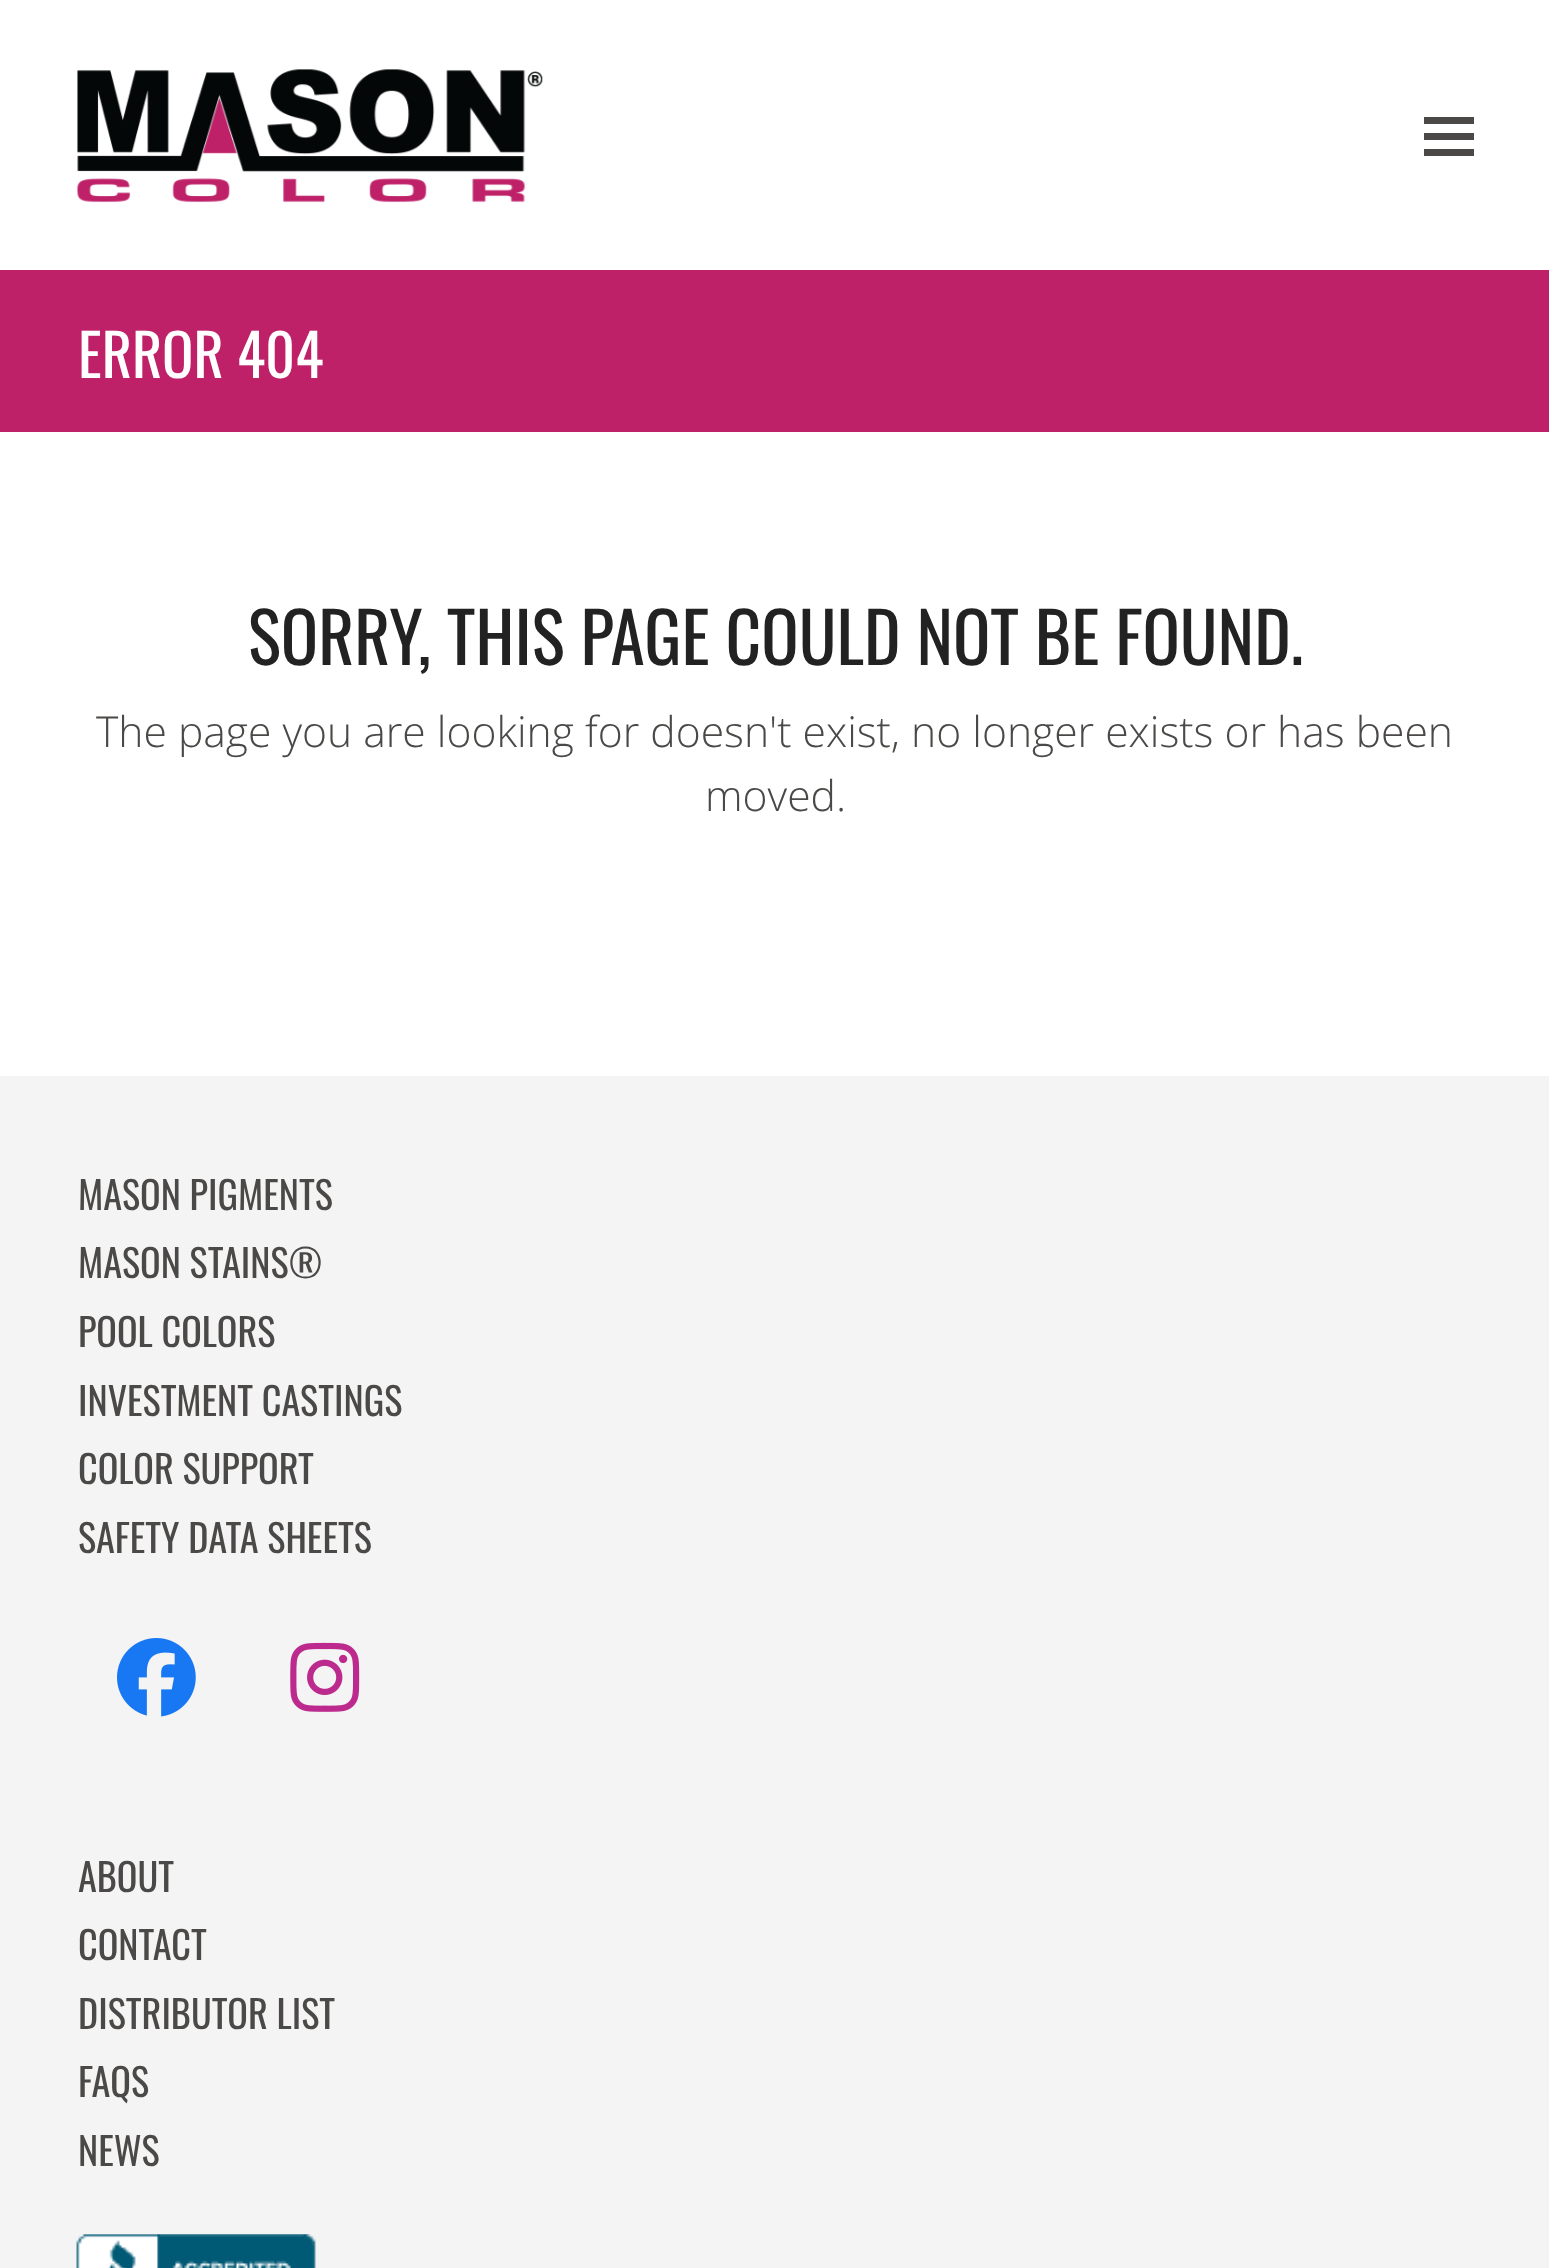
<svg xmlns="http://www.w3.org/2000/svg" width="1549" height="2268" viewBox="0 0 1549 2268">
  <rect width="100%" height="100%" fill="#ffffff"/>
  <image x="77" y="69" width="466" height="134" href="img1.png"/>
  <rect x="1424" y="133" width="50" height="7" fill="#4b4947"/>
  <rect x="1424" y="117" width="50" height="7" fill="#4b4947"/>
  <rect x="1424" y="149" width="50" height="7" fill="#4b4947"/>
  <rect x="0" y="270" width="1549" height="162" fill="#bf2169"/>
  <text x="78" y="378" font-family="Oswald" font-size="58.25" fill="#ffffff">ERROR 404</text>
  <text x="248" y="665" font-family="Oswald" font-size="69.4" fill="#222222">SORRY, THIS PAGE COULD NOT BE FOUND.</text>
  <text x="96" y="747" font-family="Open Sans" font-size="42.6" font-weight="300" fill="#4b4947">The page you are looking for doesn't exist, no longer exists or has been</text>
  <text x="705" y="811" font-family="Open Sans" font-size="42.6" font-weight="300" fill="#4b4947">moved.</text>
  <rect x="0" y="1076" width="1549" height="1192" fill="#f4f4f4"/>
  <text x="78" y="1210" font-family="Oswald" font-size="38.25" fill="#4b4947">MASON PIGMENTS</text>
  <text x="78" y="1278" font-family="Oswald" font-size="38.25" fill="#4b4947">MASON STAINS®</text>
  <text x="78" y="1347" font-family="Oswald" font-size="38.25" fill="#4b4947">POOL COLORS</text>
  <text x="78" y="1416" font-family="Oswald" font-size="38.25" fill="#4b4947">INVESTMENT CASTINGS</text>
  <text x="78" y="1484" font-family="Oswald" font-size="38.25" fill="#4b4947">COLOR SUPPORT</text>
  <text x="78" y="1553" font-family="Oswald" font-size="38.25" fill="#4b4947">SAFETY DATA SHEETS</text>
  <image x="117" y="1638" width="79" height="79" href="img2.png"/>
  <image x="290" y="1642" width="70" height="70" href="img3.png"/>
  <text x="78" y="1892" font-family="Oswald" font-size="38.25" fill="#4b4947">ABOUT</text>
  <text x="78" y="1960" font-family="Oswald" font-size="38.25" fill="#4b4947">CONTACT</text>
  <text x="78" y="2029" font-family="Oswald" font-size="38.25" fill="#4b4947">DISTRIBUTOR LIST</text>
  <text x="78" y="2097" font-family="Oswald" font-size="38.25" fill="#4b4947">FAQS</text>
  <text x="78" y="2166" font-family="Oswald" font-size="38.25" fill="#4b4947">NEWS</text>
  <image x="76" y="2234" width="240" height="34" href="img4.png"/>
</svg>
